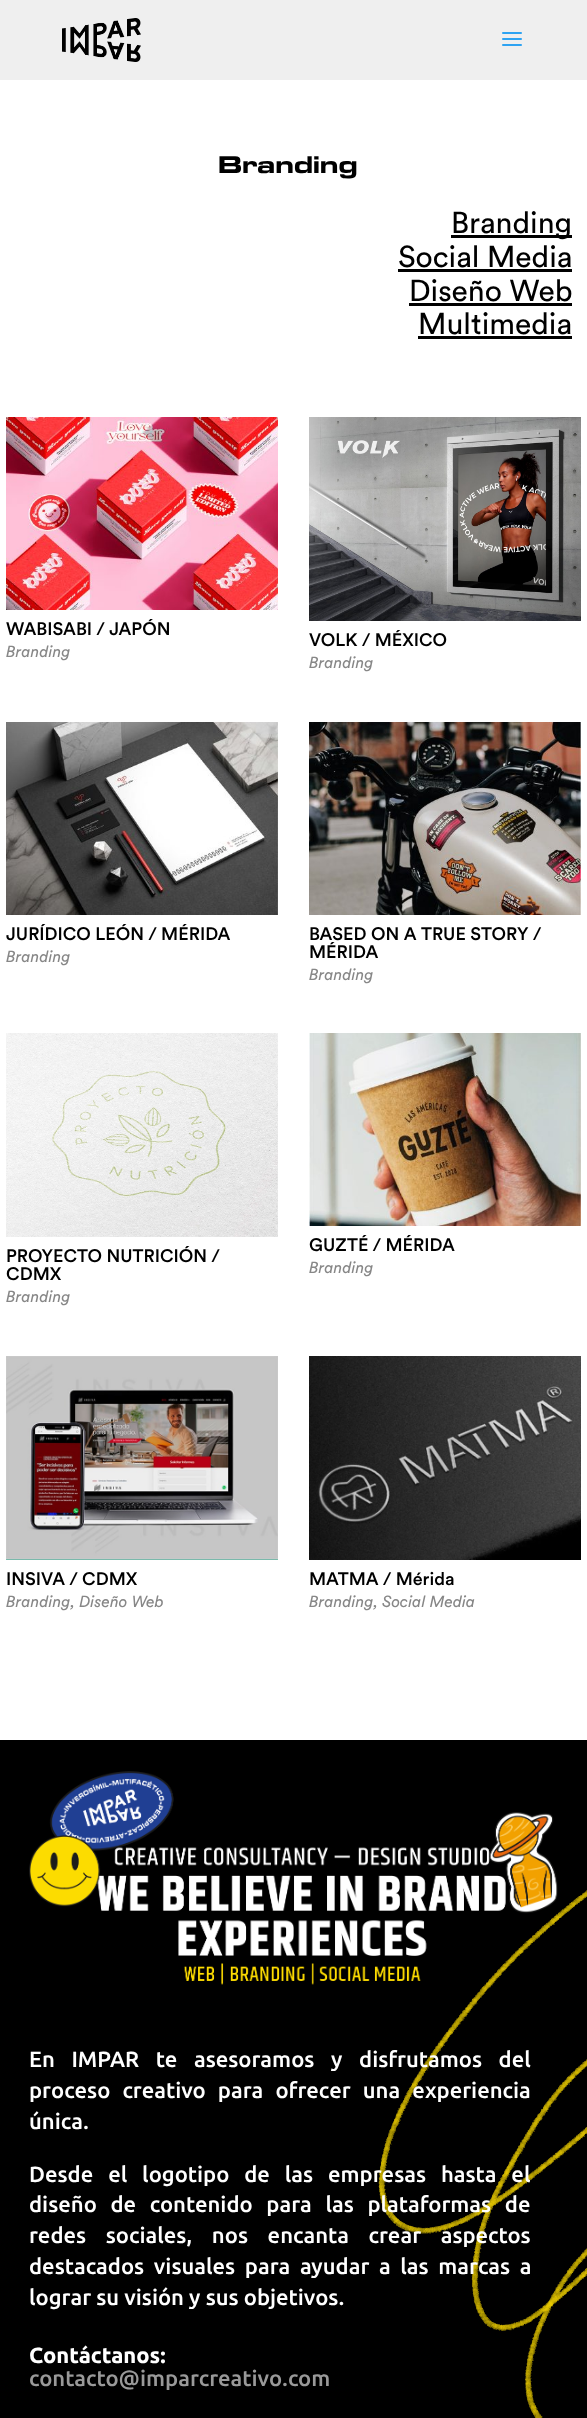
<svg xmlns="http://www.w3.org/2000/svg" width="587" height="2418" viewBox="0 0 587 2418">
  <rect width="100%" height="100%" fill="#ffffff"/>
  <rect x="0" y="0" width="587" height="80" fill="#efefef"/>
  <image x="62" y="18" width="79" height="44" href="img1.png"/>
  <image x="502" y="32" width="20" height="14" href="img2.png"/>
  <text x="218" y="173" font-family="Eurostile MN" font-size="25" font-weight="bold" fill="#000000">Branding</text>
  <rect x="451" y="235" width="121" height="3" fill="#000000"/>
  <text x="451" y="233" font-family="Circular" font-size="30" fill="#000000">Branding</text>
  <text x="398" y="267" font-family="Circular" font-size="30" fill="#000000">Social Media</text>
  <rect x="398" y="269" width="174" height="3" fill="#000000"/>
  <text x="409" y="301" font-family="Circular" font-size="30" fill="#000000">Diseño Web</text>
  <rect x="409" y="303" width="163" height="3" fill="#000000"/>
  <text x="418" y="334" font-family="Circular" font-size="30" fill="#000000">Multimedia</text>
  <rect x="418" y="336" width="154" height="3" fill="#000000"/>
  <image x="6" y="417" width="272" height="193" href="img3.png"/>
  <text x="6" y="635" font-family="Circular" font-size="18" font-weight="500" fill="#000000">WABISABI / JAPÓN</text>
  <text x="6" y="657" font-family="Circular" font-size="16" font-style="italic" fill="#878787">Branding</text>
  <image x="309" y="417" width="272" height="204" href="img4.png"/>
  <text x="309" y="646" font-family="Circular" font-size="18" font-weight="500" fill="#000000">VOLK / MÉXICO</text>
  <text x="309" y="668" font-family="Circular" font-size="16" font-style="italic" fill="#878787">Branding</text>
  <image x="6" y="722" width="272" height="193" href="img5.png"/>
  <text x="6" y="940" font-family="Circular" font-size="18" font-weight="500" fill="#000000">JURÍDICO LEÓN / MÉRIDA</text>
  <text x="6" y="962" font-family="Circular" font-size="16" font-style="italic" fill="#878787">Branding</text>
  <image x="309" y="722" width="272" height="193" href="img6.png"/>
  <text x="309" y="940" font-family="Circular" font-size="18" font-weight="500" fill="#000000">BASED ON A TRUE STORY /</text>
  <text x="309" y="958" font-family="Circular" font-size="18" font-weight="500" fill="#000000">MÉRIDA</text>
  <text x="309" y="980" font-family="Circular" font-size="16" font-style="italic" fill="#878787">Branding</text>
  <image x="6" y="1033" width="272" height="204" href="img7.png"/>
  <text x="6" y="1262" font-family="Circular" font-size="18" font-weight="500" fill="#000000">PROYECTO NUTRICIÓN /</text>
  <text x="6" y="1280" font-family="Circular" font-size="18" font-weight="500" fill="#000000">CDMX</text>
  <text x="6" y="1302" font-family="Circular" font-size="16" font-style="italic" fill="#878787">Branding</text>
  <image x="309" y="1033" width="272" height="193" href="img8.png"/>
  <text x="309" y="1251" font-family="Circular" font-size="18" font-weight="500" fill="#000000">GUZTÉ / MÉRIDA</text>
  <text x="309" y="1273" font-family="Circular" font-size="16" font-style="italic" fill="#878787">Branding</text>
  <image x="6" y="1356" width="272" height="204" href="img9.png"/>
  <text x="6" y="1585" font-family="Circular" font-size="18" font-weight="500" fill="#000000">INSIVA / CDMX</text>
  <text x="6" y="1607" font-family="Circular" font-size="16" font-style="italic" fill="#878787">Branding, Diseño Web</text>
  <image x="309" y="1356" width="272" height="204" href="img10.png"/>
  <text x="309" y="1585" font-family="Circular" font-size="18" font-weight="500" fill="#000000">MATMA / Mérida</text>
  <text x="309" y="1607" font-family="Circular" font-size="16" font-style="italic" fill="#878787">Branding, Social Media</text>
  <rect x="0" y="1740" width="587" height="678" fill="#000000"/>
  <image x="378" y="1890" width="209" height="528" href="img11.png"/>
  <image x="29" y="1771" width="529" height="214" href="img12.png"/>
  <text x="29" y="2067" word-spacing="11.5" font-family="Ubuntu" font-size="22" font-weight="500" fill="#ffffff">En IMPAR te asesoramos y disfrutamos del</text>
  <text x="29" y="2098" word-spacing="7" font-family="Ubuntu" font-size="22" font-weight="500" fill="#ffffff">proceso creativo para ofrecer una experiencia</text>
  <text x="29" y="2129" font-family="Ubuntu" font-size="22" font-weight="500" fill="#ffffff">única.</text>
  <text x="29" y="2182" word-spacing="9.75" font-family="Ubuntu" font-size="22" font-weight="500" fill="#ffffff">Desde el logotipo de las empresas hasta el</text>
  <text x="29" y="2212" word-spacing="8.5" font-family="Ubuntu" font-size="22" font-weight="500" fill="#ffffff">diseño de contenido para las plataformas de</text>
  <text x="29" y="2243" word-spacing="14.5" font-family="Ubuntu" font-size="22" font-weight="500" fill="#ffffff">redes sociales, nos encanta crear aspectos</text>
  <text x="29" y="2274" word-spacing="4.5" font-family="Ubuntu" font-size="22" font-weight="500" fill="#ffffff">destacados visuales para ayudar a las marcas a</text>
  <text x="29" y="2305" font-family="Ubuntu" font-size="22" font-weight="500" fill="#ffffff">lograr su visión y sus objetivos.</text>
  <text x="29" y="2363" font-family="Ubuntu" font-size="22" font-weight="bold" fill="#ffffff">Contáctanos:</text>
  <text x="29" y="2386" font-family="Ubuntu" font-size="22" font-weight="500" fill="#999999">contacto@imparcreativo.com</text>
</svg>
